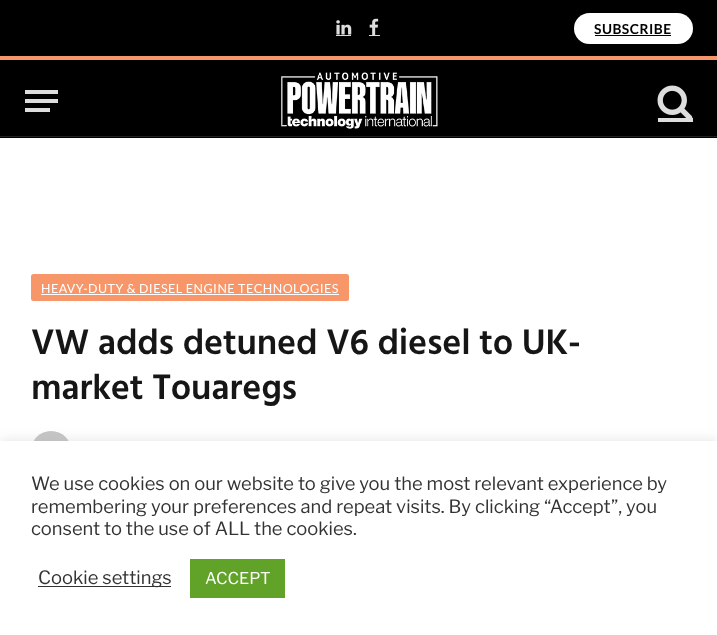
<svg xmlns="http://www.w3.org/2000/svg" width="717" height="635" viewBox="0 0 717 635">
  <defs>
    <filter id="blur1" x="-50%" y="-200%" width="200%" height="500%"><feGaussianBlur stdDeviation="0.5"/></filter>
    <filter id="blur2" x="-50%" y="-200%" width="200%" height="500%"><feGaussianBlur stdDeviation="6"/></filter>
  </defs>
  <rect width="100%" height="100%" fill="#ffffff"/>
  <rect x="0" y="0" width="717" height="56" fill="#000000"/>
  <image x="336" y="20" width="16" height="15" href="img1.png"/>
  <rect x="336" y="35" width="15" height="1" fill="#dddddd"/>
  <image x="369" y="18" width="10" height="17" href="img2.png"/>
  <rect x="369" y="35" width="11" height="1" fill="#dddddd"/>
  <rect x="574" y="13" width="119" height="31" rx="15.5" fill="#ffffff"/>
  <text x="594" y="34" font-family="Lato" font-size="13.75" font-weight="bold" letter-spacing="0.5" fill="#000000">SUBSCRIBE</text>
  <rect x="595" y="35" width="76" height="1" fill="#000000"/>
  <rect x="0" y="60" width="717" height="78" fill="#000000"/>
  <rect x="0" y="56" width="717" height="4" fill="#f79669"/>
  <rect x="0" y="136" width="717" height="1" fill="#222222"/>
  <rect x="25" y="108" width="25" height="4" fill="#dddddd"/>
  <rect x="25" y="90" width="33" height="4" fill="#dddddd"/>
  <rect x="25" y="99" width="33" height="4" fill="#dddddd"/>
  <image x="281" y="72" width="157" height="57" href="img3.png"/>
  <image x="657" y="85" width="36" height="33" href="img4.png"/>
  <rect x="658" y="118" width="35" height="4" fill="#dddddd"/>
  <rect x="31" y="274" width="318" height="27" rx="2.5" fill="#f79669"/>
  <text x="41" y="293" font-family="Lato" font-size="12.5" letter-spacing="0.5" fill="#ffffff">HEAVY-DUTY &amp; DIESEL ENGINE TECHNOLOGIES</text>
  <rect x="41" y="294" width="298" height="1" fill="#ffffff"/>
  <text x="31" y="354" font-family="Hind" font-size="36.25" font-weight="600" letter-spacing="-0.2" fill="#161616">VW adds detuned V6 diesel to UK-</text>
  <text x="31" y="399" font-family="Hind" font-size="36.25" font-weight="600" letter-spacing="-0.2" fill="#161616">market Touaregs</text>
  <rect x="31" y="431" width="40" height="40" rx="20" fill="#000000" fill-opacity="0.2" filter="url(#blur1)"/>
  <image x="34" y="431" width="35" height="10" href="img5.png"/>
  <rect x="0" y="440" width="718" height="194" fill="#acabab" fill-opacity="0.3" filter="url(#blur2)"/>
  <rect x="0" y="441" width="717" height="194" fill="#ffffff"/>
  <text x="31" y="490" font-family="Libre Franklin" font-size="18.35" fill="#333333">We use cookies on our website to give you the most relevant experience by</text>
  <text x="31" y="513" font-family="Libre Franklin" font-size="18.35" fill="#333333">remembering your preferences and repeat visits. By clicking “Accept”, you</text>
  <text x="31" y="535" font-family="Libre Franklin" font-size="18.35" fill="#333333">consent to the use of ALL the cookies.</text>
  <rect x="38" y="586" width="133" height="1" fill="#333333"/>
  <text x="38" y="584" font-family="Libre Franklin" font-size="18.35" fill="#333333">Cookie settings</text>
  <rect x="190" y="559" width="95" height="39" fill="#61a229"/>
  <text x="205" y="584" font-family="Libre Franklin" font-size="16.25" fill="#ffffff">ACCEPT</text>
</svg>
